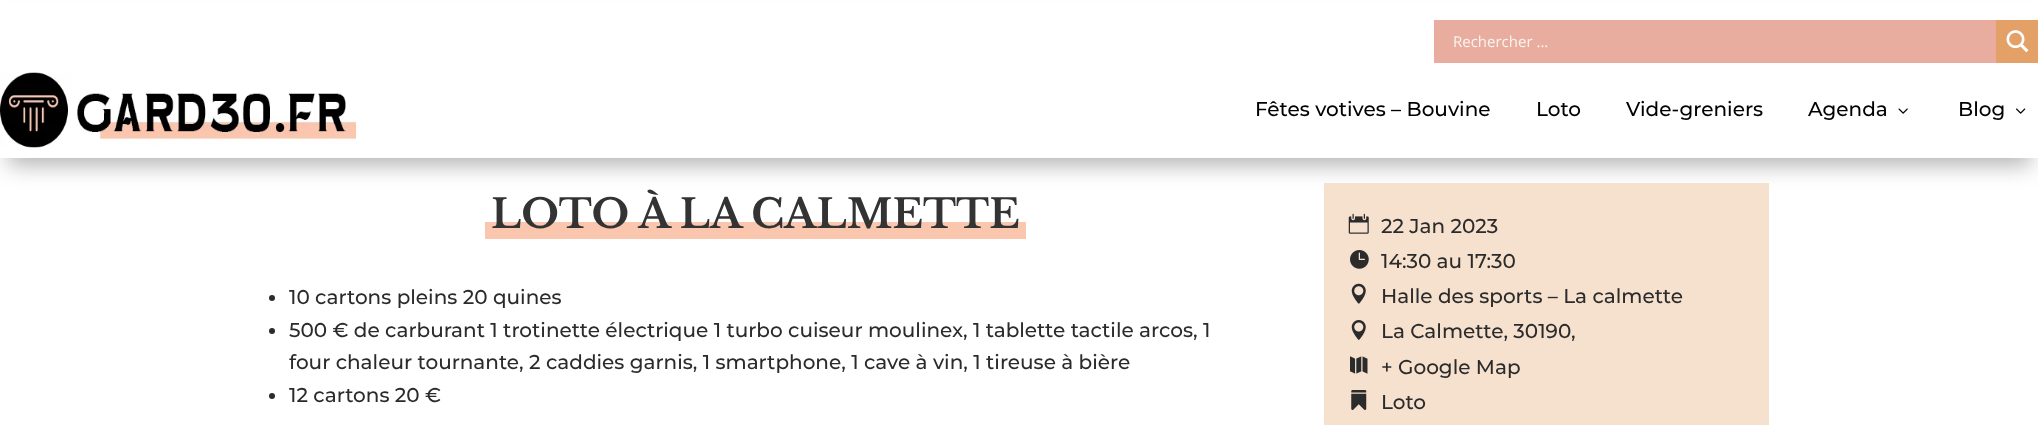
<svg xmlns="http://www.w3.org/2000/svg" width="2038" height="425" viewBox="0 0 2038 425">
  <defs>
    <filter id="blur1" x="-50%" y="-200%" width="200%" height="500%"><feGaussianBlur stdDeviation="11"/></filter>
    <linearGradient id="g1" gradientUnits="userSpaceOnUse" x1="756" y1="189" x2="756" y2="239"><stop offset="0" stop-color="#ffffff"/><stop offset="0.65" stop-color="#ffffff"/><stop offset="0.65" stop-color="#fbc6ae"/><stop offset="1" stop-color="#fbc6ae"/></linearGradient>
  </defs>
  <rect width="100%" height="100%" fill="#ffffff"/>
  <rect x="8" y="23" width="2023" height="142" fill="#000000" fill-opacity="0.3" filter="url(#blur1)"/>
  <rect x="0" y="3" width="2038" height="155" fill="#ffffff"/>
  <rect x="1434" y="20" width="562" height="43" fill="#e8ad9e"/>
  <text x="1453" y="47" font-family="Open Sans" font-size="15" fill="#fcf3f0">Rechercher ...</text>
  <rect x="1996" y="20" width="42" height="43" fill="#e3a168"/>
  <image x="2006" y="30" width="23" height="23" href="img1.png"/>
  <image x="0" y="72" width="357" height="76" href="img2.png"/>
  <text x="1255" y="116" font-family="Montserrat" font-size="20" font-weight="100" fill="#000000">Fêtes votives – Bouvine</text>
  <text x="1536" y="116" font-family="Montserrat" font-size="20" font-weight="100" fill="#000000">Loto</text>
  <text x="1626" y="116" font-family="Montserrat" font-size="20" font-weight="100" fill="#000000">Vide-greniers</text>
  <text x="1808" y="116" font-family="Montserrat" font-size="20" font-weight="100" fill="#000000">Agenda</text>
  <image x="1898" y="108" width="10" height="6" href="img3.png"/>
  <text x="1958" y="116" font-family="Montserrat" font-size="20" font-weight="100" fill="#000000">Blog</text>
  <image x="2016" y="108" width="10" height="6" href="img4.png"/>
  <rect x="485" y="221" width="541" height="18" fill="url(#g1)"/>
  <text x="491" y="228" font-family="Libre Baskerville" font-size="40" font-weight="bold" fill="#333333">LOTO À LA CALMETTE</text>
  <circle cx="272" cy="298" r="3" fill="#2b2b2b"/>
  <text x="289" y="304" font-family="Montserrat" font-size="20" font-weight="100" fill="#2b2b2b">10 cartons pleins 20 quines</text>
  <circle cx="272" cy="331" r="3" fill="#2b2b2b"/>
  <text x="289" y="337" font-family="Montserrat" font-size="20" font-weight="100" fill="#2b2b2b">500 € de carburant 1 trotinette électrique 1 turbo cuiseur moulinex, 1 tablette tactile arcos, 1</text>
  <text x="289" y="369" font-family="Montserrat" font-size="20" font-weight="100" fill="#2b2b2b">four chaleur tournante, 2 caddies garnis, 1 smartphone, 1 cave à vin, 1 tireuse à bière</text>
  <circle cx="272" cy="396" r="3" fill="#2b2b2b"/>
  <text x="289" y="402" font-family="Montserrat" font-size="20" font-weight="100" fill="#2b2b2b">12 cartons 20 €</text>
  <rect x="1324" y="183" width="445" height="242" fill="#f6e0ce"/>
  <image x="1348" y="213" width="21" height="21" href="img5.png"/>
  <text x="1381" y="233" font-family="Montserrat" font-size="20" font-weight="100" fill="#2b2b2b">22 Jan 2023</text>
  <image x="1350" y="250" width="19" height="19" href="img6.png"/>
  <text x="1381" y="268" font-family="Montserrat" font-size="20" font-weight="100" fill="#2b2b2b">14:30 au 17:30</text>
  <image x="1351" y="283" width="15" height="21" href="img7.png"/>
  <text x="1381" y="303" font-family="Montserrat" font-size="20" font-weight="100" fill="#2b2b2b">Halle des sports – La calmette</text>
  <image x="1351" y="320" width="15" height="20" href="img8.png"/>
  <text x="1381" y="338" font-family="Montserrat" font-size="20" font-weight="100" fill="#2b2b2b">La Calmette, 30190,</text>
  <image x="1350" y="356" width="18" height="18" href="img9.png"/>
  <text x="1381" y="374" font-family="Montserrat" font-size="20" font-weight="100" fill="#2b2b2b">+ Google Map</text>
  <image x="1351" y="390" width="16" height="20" href="img10.png"/>
  <text x="1381" y="409" font-family="Montserrat" font-size="20" font-weight="100" fill="#2b2b2b">Loto</text>
</svg>
